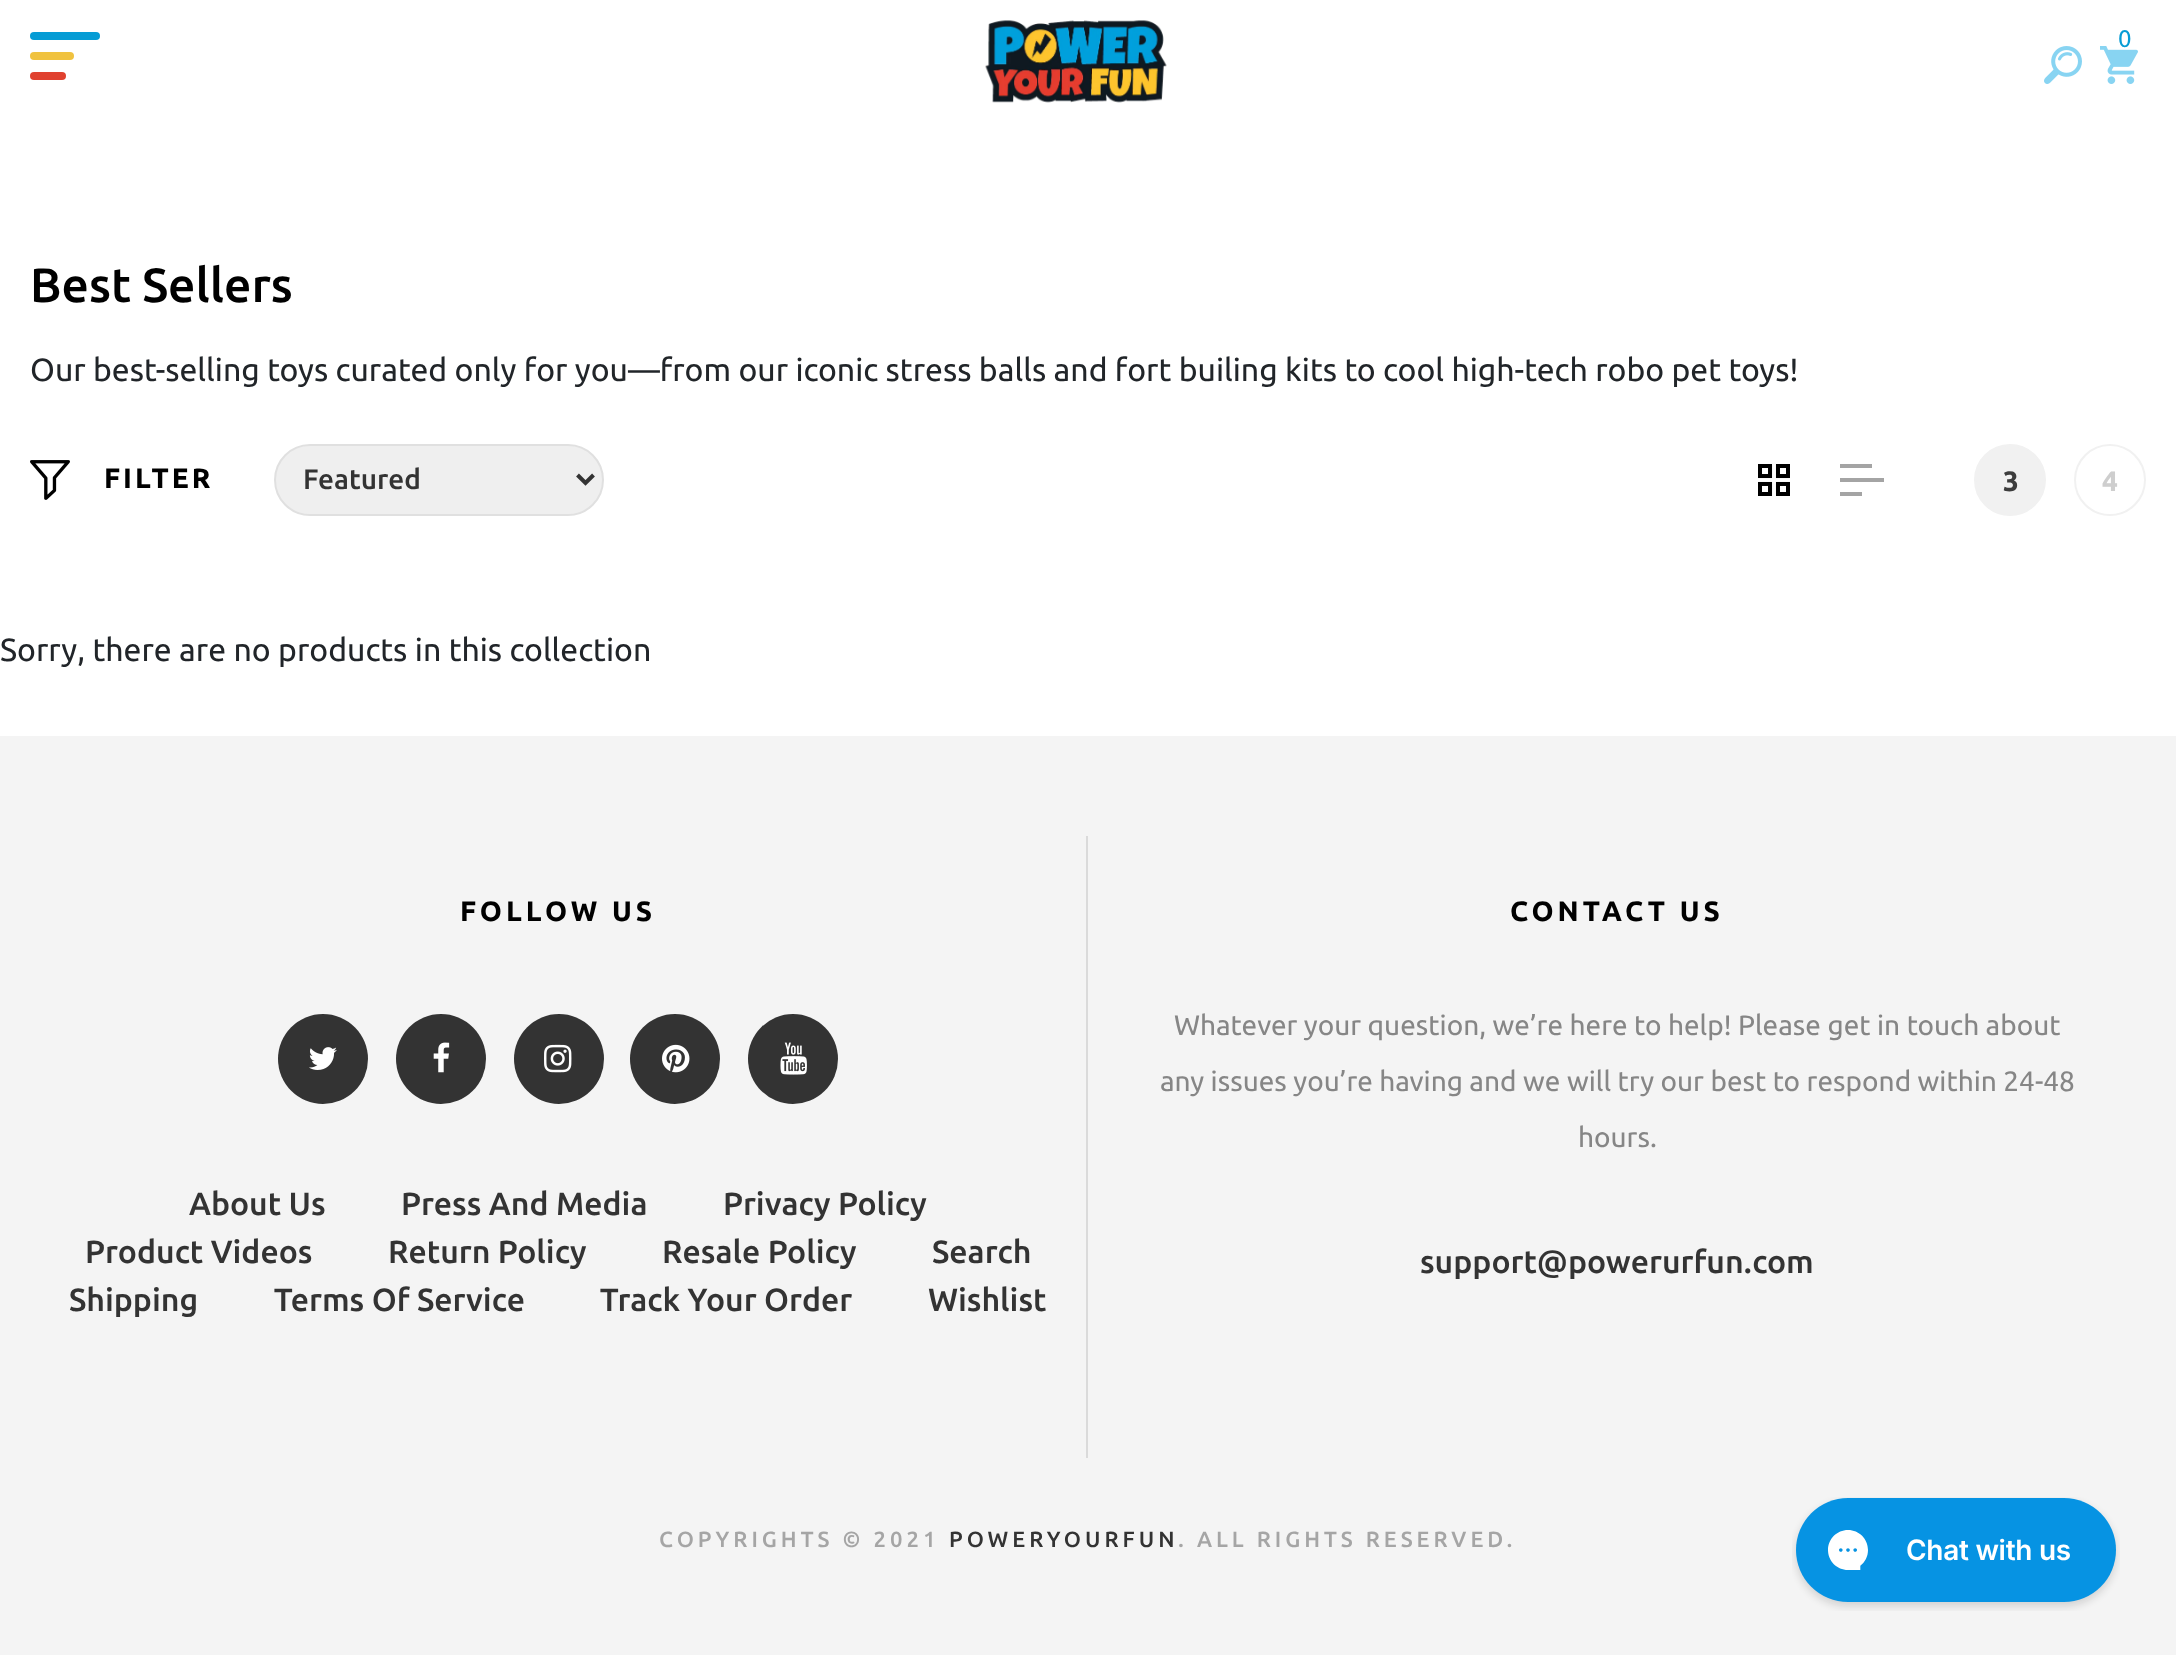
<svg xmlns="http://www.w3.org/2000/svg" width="2176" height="1655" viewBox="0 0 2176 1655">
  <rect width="100%" height="100%" fill="#ffffff"/>
  <rect x="30" y="32" width="70" height="8" rx="4" fill="#069cd5"/>
  <rect x="30" y="52" width="44" height="8" rx="4" fill="#f0c23f"/>
  <rect x="30" y="72" width="36" height="8" rx="4" fill="#e0412f"/>
  <image x="985" y="20" width="182" height="83" href="img1.png"/>
  <image x="2100" y="46" width="38" height="38" href="img2.png"/>
  <text x="2118" y="47" font-family="Ubuntu" font-size="24" fill="#069cd5">0</text>
  <image x="2044" y="46" width="38" height="38" href="img3.png"/>
  <text x="30" y="302" font-family="Ubuntu" font-size="48" font-weight="500" fill="#000000">Best Sellers</text>
  <text x="30" y="381" font-family="Ubuntu" font-size="32" fill="#212529">Our best-selling toys curated only for you—from our iconic stress balls and fort builing kits to cool high-tech robo pet toys!</text>
  <image x="30" y="460" width="40" height="40" href="img4.png"/>
  <text x="104" y="488" font-family="Ubuntu" font-size="28" font-weight="bold" letter-spacing="3" fill="#000000">FILTER</text>
  <rect x="275" y="445" width="328" height="70" rx="35" fill="#efefef" stroke="#e0e0e0" stroke-width="2"/>
  <path d="M577.5 475L585.5 483L593.5 475" fill="none" stroke="#333333" stroke-width="4"/>
  <text x="303" y="489" font-family="Ubuntu" font-size="28" font-weight="500" fill="#333333">Featured</text>
  <image x="1758" y="464" width="32" height="32" href="img5.png"/>
  <rect x="1840" y="464" width="32" height="4" fill="#a4a4a4"/>
  <rect x="1840" y="478" width="44" height="4" fill="#a4a4a4"/>
  <rect x="1840" y="492" width="22" height="4" fill="#a4a4a4"/>
  <circle cx="2010" cy="480" r="35" fill="#f1f1f1" stroke="#f1f1f1" stroke-width="2"/>
  <text x="2003" y="491" font-family="Ubuntu" font-size="28" font-weight="bold" fill="#3d3d3d">3</text>
  <circle cx="2110" cy="480" r="35" fill="none" stroke="#f1f1f1" stroke-width="2"/>
  <text x="2102" y="491" font-family="Ubuntu" font-size="28" font-weight="bold" fill="#cecece">4</text>
  <text x="0" y="661" font-family="Ubuntu" font-size="32" fill="#212529">Sorry, there are no products in this collection</text>
  <rect x="0" y="736" width="2176" height="919" fill="#f4f4f4"/>
  <rect x="1086" y="836" width="2" height="622" fill="#dadada"/>
  <text x="460" y="921" font-family="Ubuntu" font-size="28" font-weight="bold" letter-spacing="4" fill="#000000">FOLLOW US</text>
  <circle cx="323" cy="1059" r="45" fill="#333333"/>
  <image x="309" y="1047" width="28" height="23" href="img6.png"/>
  <circle cx="441" cy="1059" r="45" fill="#333333"/>
  <image x="433" y="1042" width="17" height="31" href="img7.png"/>
  <circle cx="559" cy="1059" r="45" fill="#333333"/>
  <image x="544" y="1044" width="28" height="29" href="img8.png"/>
  <circle cx="675" cy="1059" r="45" fill="#333333"/>
  <image x="662" y="1044" width="28" height="29" href="img9.png"/>
  <circle cx="793" cy="1059" r="45" fill="#333333"/>
  <image x="780" y="1042" width="27" height="33" href="img10.png"/>
  <text x="189" y="1215" font-family="Ubuntu" font-size="32" font-weight="500" fill="#333333">About Us</text>
  <text x="401" y="1215" font-family="Ubuntu" font-size="32" font-weight="500" fill="#333333">Press And Media</text>
  <text x="723" y="1215" font-family="Ubuntu" font-size="32" font-weight="500" fill="#333333">Privacy Policy</text>
  <text x="85" y="1263" font-family="Ubuntu" font-size="32" font-weight="500" fill="#333333">Product Videos</text>
  <text x="388" y="1263" font-family="Ubuntu" font-size="32" font-weight="500" fill="#333333">Return Policy</text>
  <text x="662" y="1263" font-family="Ubuntu" font-size="32" font-weight="500" fill="#333333">Resale Policy</text>
  <text x="932" y="1263" font-family="Ubuntu" font-size="32" font-weight="500" fill="#333333">Search</text>
  <text x="69" y="1311" font-family="Ubuntu" font-size="32" font-weight="500" fill="#333333">Shipping</text>
  <text x="274" y="1311" font-family="Ubuntu" font-size="32" font-weight="500" fill="#333333">Terms Of Service</text>
  <text x="600" y="1311" font-family="Ubuntu" font-size="32" font-weight="500" fill="#333333">Track Your Order</text>
  <text x="928" y="1311" font-family="Ubuntu" font-size="32" font-weight="500" fill="#333333">Wishlist</text>
  <text x="1510" y="921" font-family="Ubuntu" font-size="28" font-weight="bold" letter-spacing="4" fill="#000000">CONTACT US</text>
  <text x="1174" y="1035" font-family="Ubuntu" font-size="28" fill="#868686">Whatever your question, we’re here to help! Please get in touch about</text>
  <text x="1160" y="1091" font-family="Ubuntu" font-size="28" fill="#868686">any issues you’re having and we will try our best to respond within 24-48</text>
  <text x="1578" y="1147" font-family="Ubuntu" font-size="28" fill="#868686">hours.</text>
  <text x="1420" y="1273" font-family="Ubuntu" font-size="32" font-weight="500" fill="#333333">support@powerurfun.com</text>
  <text x="659" y="1547" font-family="Ubuntu" font-size="22" font-weight="500" letter-spacing="4" fill="#a5a5a5">COPYRIGHTS © 2021</text>
  <text x="949" y="1547" font-family="Ubuntu" font-size="22" font-weight="500" letter-spacing="4" fill="#333333">POWERYOURFUN</text>
  <text x="1178" y="1547" font-family="Ubuntu" font-size="22" font-weight="500" letter-spacing="4" fill="#a5a5a5">. ALL RIGHTS RESERVED.</text>
  <image x="1792" y="1497" width="328" height="114" href="img11.png"/>
</svg>
